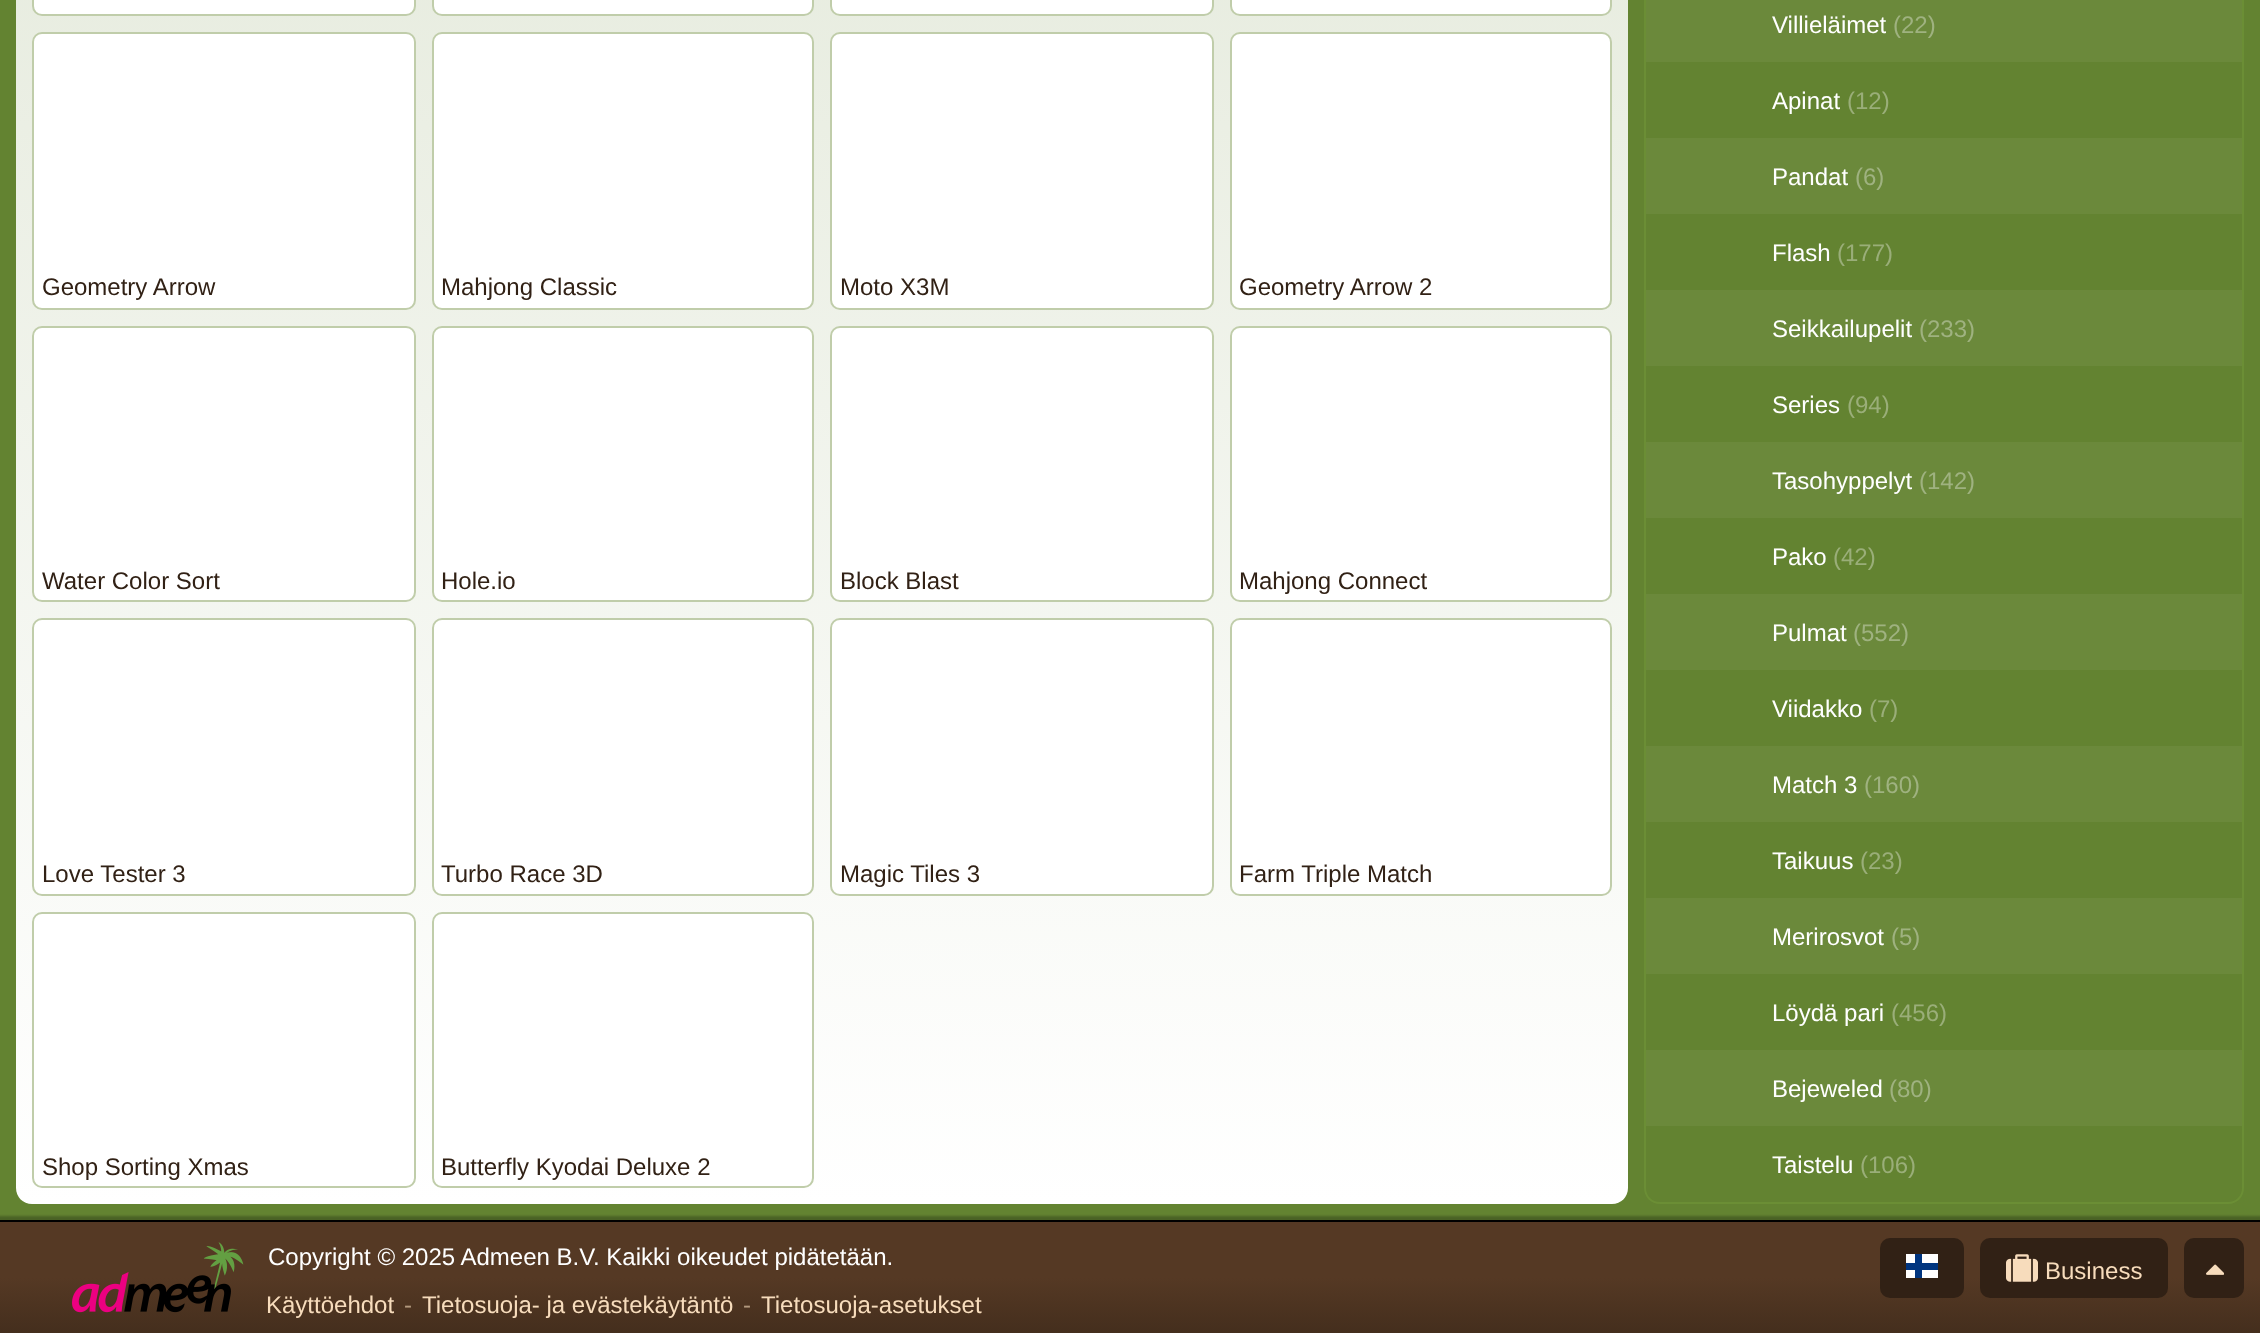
<svg xmlns="http://www.w3.org/2000/svg" width="2260" height="1333" viewBox="0 0 2260 1333">
  <defs>
    <linearGradient id="g1" gradientUnits="userSpaceOnUse" x1="822" y1="-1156" x2="822" y2="1204"><stop offset="0" stop-color="#d3dcc4"/><stop offset="1" stop-color="#ffffff"/></linearGradient>
    <filter id="blur1" x="-50%" y="-200%" width="200%" height="500%"><feGaussianBlur stdDeviation="1"/></filter>
    <linearGradient id="g2" gradientUnits="userSpaceOnUse" x1="1130" y1="1222" x2="1130" y2="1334"><stop offset="0.5" stop-color="#553924"/><stop offset="1" stop-color="#442e1d"/></linearGradient>
  </defs>
  <rect width="100%" height="100%" fill="#638331"/>
  <path d="M16-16H1628V1188C1628 1197 1621 1204 1612 1204H32C23 1204 16 1197 16 1188Z" fill="url(#g1)"/>
  <rect x="33" y="-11" width="382" height="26" rx="9" fill="#ffffff" stroke="#c0cdaa" stroke-width="2"/>
  <rect x="433" y="-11" width="380" height="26" rx="9" fill="#ffffff" stroke="#c0cdaa" stroke-width="2"/>
  <rect x="831" y="-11" width="382" height="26" rx="9" fill="#ffffff" stroke="#c0cdaa" stroke-width="2"/>
  <rect x="1231" y="-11" width="380" height="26" rx="9" fill="#ffffff" stroke="#c0cdaa" stroke-width="2"/>
  <rect x="33" y="33" width="382" height="276" rx="9" fill="#ffffff" stroke="#c0cdaa" stroke-width="2"/>
  <text x="42" y="295" font-family="Liberation Sans" font-size="24" fill="#312115">Geometry Arrow</text>
  <rect x="433" y="33" width="380" height="276" rx="9" fill="#ffffff" stroke="#c0cdaa" stroke-width="2"/>
  <text x="441" y="295" font-family="Liberation Sans" font-size="24" fill="#312115">Mahjong Classic</text>
  <rect x="831" y="33" width="382" height="276" rx="9" fill="#ffffff" stroke="#c0cdaa" stroke-width="2"/>
  <text x="840" y="295" font-family="Liberation Sans" font-size="24" fill="#312115">Moto X3M</text>
  <rect x="1231" y="33" width="380" height="276" rx="9" fill="#ffffff" stroke="#c0cdaa" stroke-width="2"/>
  <text x="1239" y="295" font-family="Liberation Sans" font-size="24" fill="#312115">Geometry Arrow 2</text>
  <rect x="33" y="327" width="382" height="274" rx="9" fill="#ffffff" stroke="#c0cdaa" stroke-width="2"/>
  <text x="42" y="589" font-family="Liberation Sans" font-size="24" fill="#312115">Water Color Sort</text>
  <rect x="433" y="327" width="380" height="274" rx="9" fill="#ffffff" stroke="#c0cdaa" stroke-width="2"/>
  <text x="441" y="589" font-family="Liberation Sans" font-size="24" fill="#312115">Hole.io</text>
  <rect x="831" y="327" width="382" height="274" rx="9" fill="#ffffff" stroke="#c0cdaa" stroke-width="2"/>
  <text x="840" y="589" font-family="Liberation Sans" font-size="24" fill="#312115">Block Blast</text>
  <rect x="1231" y="327" width="380" height="274" rx="9" fill="#ffffff" stroke="#c0cdaa" stroke-width="2"/>
  <text x="1239" y="589" font-family="Liberation Sans" font-size="24" fill="#312115">Mahjong Connect</text>
  <rect x="33" y="619" width="382" height="276" rx="9" fill="#ffffff" stroke="#c0cdaa" stroke-width="2"/>
  <text x="42" y="882" font-family="Liberation Sans" font-size="24" fill="#312115">Love Tester 3</text>
  <rect x="433" y="619" width="380" height="276" rx="9" fill="#ffffff" stroke="#c0cdaa" stroke-width="2"/>
  <text x="441" y="882" font-family="Liberation Sans" font-size="24" fill="#312115">Turbo Race 3D</text>
  <rect x="831" y="619" width="382" height="276" rx="9" fill="#ffffff" stroke="#c0cdaa" stroke-width="2"/>
  <text x="840" y="882" font-family="Liberation Sans" font-size="24" fill="#312115">Magic Tiles 3</text>
  <rect x="1231" y="619" width="380" height="276" rx="9" fill="#ffffff" stroke="#c0cdaa" stroke-width="2"/>
  <text x="1239" y="882" font-family="Liberation Sans" font-size="24" fill="#312115">Farm Triple Match</text>
  <rect x="33" y="913" width="382" height="274" rx="9" fill="#ffffff" stroke="#c0cdaa" stroke-width="2"/>
  <text x="42" y="1175" font-family="Liberation Sans" font-size="24" fill="#312115">Shop Sorting Xmas</text>
  <rect x="433" y="913" width="380" height="274" rx="9" fill="#ffffff" stroke="#c0cdaa" stroke-width="2"/>
  <text x="441" y="1175" font-family="Liberation Sans" font-size="24" fill="#312115">Butterfly Kyodai Deluxe 2</text>
  <path d="M1644-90H2244V1188C2244 1197 2237 1204 2228 1204H1660C1651 1204 1644 1197 1644 1188ZM1646-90H2242V1188C2242 1196 2236 1202 2228 1202H1660C1652 1202 1646 1196 1646 1188Z" fill="#6b8e35" fill-rule="evenodd"/>
  <rect x="1646" y="0" width="596" height="62" fill="#6b893b"/>
  <text x="1772" y="33" font-family="Liberation Sans" font-size="24" fill="#ffffff">Villieläimet</text>
  <text x="1893" y="33" font-family="Liberation Sans" font-size="24" fill="#9fb280">(22)</text>
  <text x="1772" y="109" font-family="Liberation Sans" font-size="24" fill="#ffffff">Apinat</text>
  <text x="1847" y="109" font-family="Liberation Sans" font-size="24" fill="#9aae79">(12)</text>
  <rect x="1646" y="138" width="596" height="76" fill="#6b893b"/>
  <text x="1772" y="185" font-family="Liberation Sans" font-size="24" fill="#ffffff">Pandat</text>
  <text x="1855" y="185" font-family="Liberation Sans" font-size="24" fill="#9fb280">(6)</text>
  <text x="1772" y="261" font-family="Liberation Sans" font-size="24" fill="#ffffff">Flash</text>
  <text x="1837" y="261" font-family="Liberation Sans" font-size="24" fill="#9aae79">(177)</text>
  <rect x="1646" y="290" width="596" height="76" fill="#6b893b"/>
  <text x="1772" y="337" font-family="Liberation Sans" font-size="24" fill="#ffffff">Seikkailupelit</text>
  <text x="1919" y="337" font-family="Liberation Sans" font-size="24" fill="#9fb280">(233)</text>
  <text x="1772" y="413" font-family="Liberation Sans" font-size="24" fill="#ffffff">Series</text>
  <text x="1847" y="413" font-family="Liberation Sans" font-size="24" fill="#9aae79">(94)</text>
  <rect x="1646" y="442" width="596" height="76" fill="#6b893b"/>
  <text x="1772" y="489" font-family="Liberation Sans" font-size="24" fill="#ffffff">Tasohyppelyt</text>
  <text x="1919" y="489" font-family="Liberation Sans" font-size="24" fill="#9fb280">(142)</text>
  <text x="1772" y="565" font-family="Liberation Sans" font-size="24" fill="#ffffff">Pako</text>
  <text x="1833" y="565" font-family="Liberation Sans" font-size="24" fill="#9aae79">(42)</text>
  <rect x="1646" y="594" width="596" height="76" fill="#6b893b"/>
  <text x="1772" y="641" font-family="Liberation Sans" font-size="24" fill="#ffffff">Pulmat</text>
  <text x="1853" y="641" font-family="Liberation Sans" font-size="24" fill="#9fb280">(552)</text>
  <text x="1772" y="717" font-family="Liberation Sans" font-size="24" fill="#ffffff">Viidakko</text>
  <text x="1869" y="717" font-family="Liberation Sans" font-size="24" fill="#9aae79">(7)</text>
  <rect x="1646" y="746" width="596" height="76" fill="#6b893b"/>
  <text x="1772" y="793" font-family="Liberation Sans" font-size="24" fill="#ffffff">Match 3</text>
  <text x="1864" y="793" font-family="Liberation Sans" font-size="24" fill="#9fb280">(160)</text>
  <text x="1772" y="869" font-family="Liberation Sans" font-size="24" fill="#ffffff">Taikuus</text>
  <text x="1860" y="869" font-family="Liberation Sans" font-size="24" fill="#9aae79">(23)</text>
  <rect x="1646" y="898" width="596" height="76" fill="#6b893b"/>
  <text x="1772" y="945" font-family="Liberation Sans" font-size="24" fill="#ffffff">Merirosvot</text>
  <text x="1891" y="945" font-family="Liberation Sans" font-size="24" fill="#9fb280">(5)</text>
  <text x="1772" y="1021" font-family="Liberation Sans" font-size="24" fill="#ffffff">Löydä pari</text>
  <text x="1891" y="1021" font-family="Liberation Sans" font-size="24" fill="#9aae79">(456)</text>
  <rect x="1646" y="1050" width="596" height="76" fill="#6b893b"/>
  <text x="1772" y="1097" font-family="Liberation Sans" font-size="24" fill="#ffffff">Bejeweled</text>
  <text x="1889" y="1097" font-family="Liberation Sans" font-size="24" fill="#9fb280">(80)</text>
  <text x="1772" y="1173" font-family="Liberation Sans" font-size="24" fill="#ffffff">Taistelu</text>
  <text x="1860" y="1173" font-family="Liberation Sans" font-size="24" fill="#9aae79">(106)</text>
  <rect x="-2" y="1216" width="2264" height="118" fill="#000000" fill-opacity="0.25" filter="url(#blur1)"/>
  <rect x="0" y="1222" width="2260" height="111" fill="url(#g2)"/>
  <rect x="0" y="1220" width="2260" height="2" fill="#000000"/>
  <image x="72" y="1242" width="172" height="71" href="img1.png"/>
  <text x="268" y="1265" font-family="Liberation Sans" font-size="24" fill="#ffffff">Copyright © 2025 Admeen B.V. Kaikki oikeudet pidätetään.</text>
  <rect x="1880" y="1238" width="84" height="60" rx="10" fill="#312115"/>
  <rect x="1906" y="1254" width="32" height="24" fill="#ffffff"/>
  <rect x="1906" y="1263" width="32" height="7" fill="#003580"/>
  <rect x="1915" y="1254" width="7" height="24" fill="#003580"/>
  <rect x="1980" y="1238" width="188" height="60" rx="10" fill="#312115"/>
  <image x="2006" y="1254" width="32" height="28" href="img2.png"/>
  <text x="2045" y="1279" font-family="Liberation Sans" font-size="24" fill="#f7dcbc">Business</text>
  <rect x="2184" y="1238" width="60" height="60" rx="10" fill="#312115"/>
  <image x="2206" y="1264" width="18" height="11" href="img3.png"/>
  <text x="266" y="1313" font-family="Liberation Sans" font-size="24" fill="#f7dcbc">Käyttöehdot</text>
  <text x="404" y="1313" font-family="Liberation Sans" font-size="24" fill="#b3997e">-</text>
  <text x="422" y="1313" font-family="Liberation Sans" font-size="24" fill="#f7dcbc">Tietosuoja- ja evästekäytäntö</text>
  <text x="743" y="1313" font-family="Liberation Sans" font-size="24" fill="#b3997e">-</text>
  <text x="761" y="1313" font-family="Liberation Sans" font-size="24" fill="#f7dcbc">Tietosuoja-asetukset</text>
</svg>
